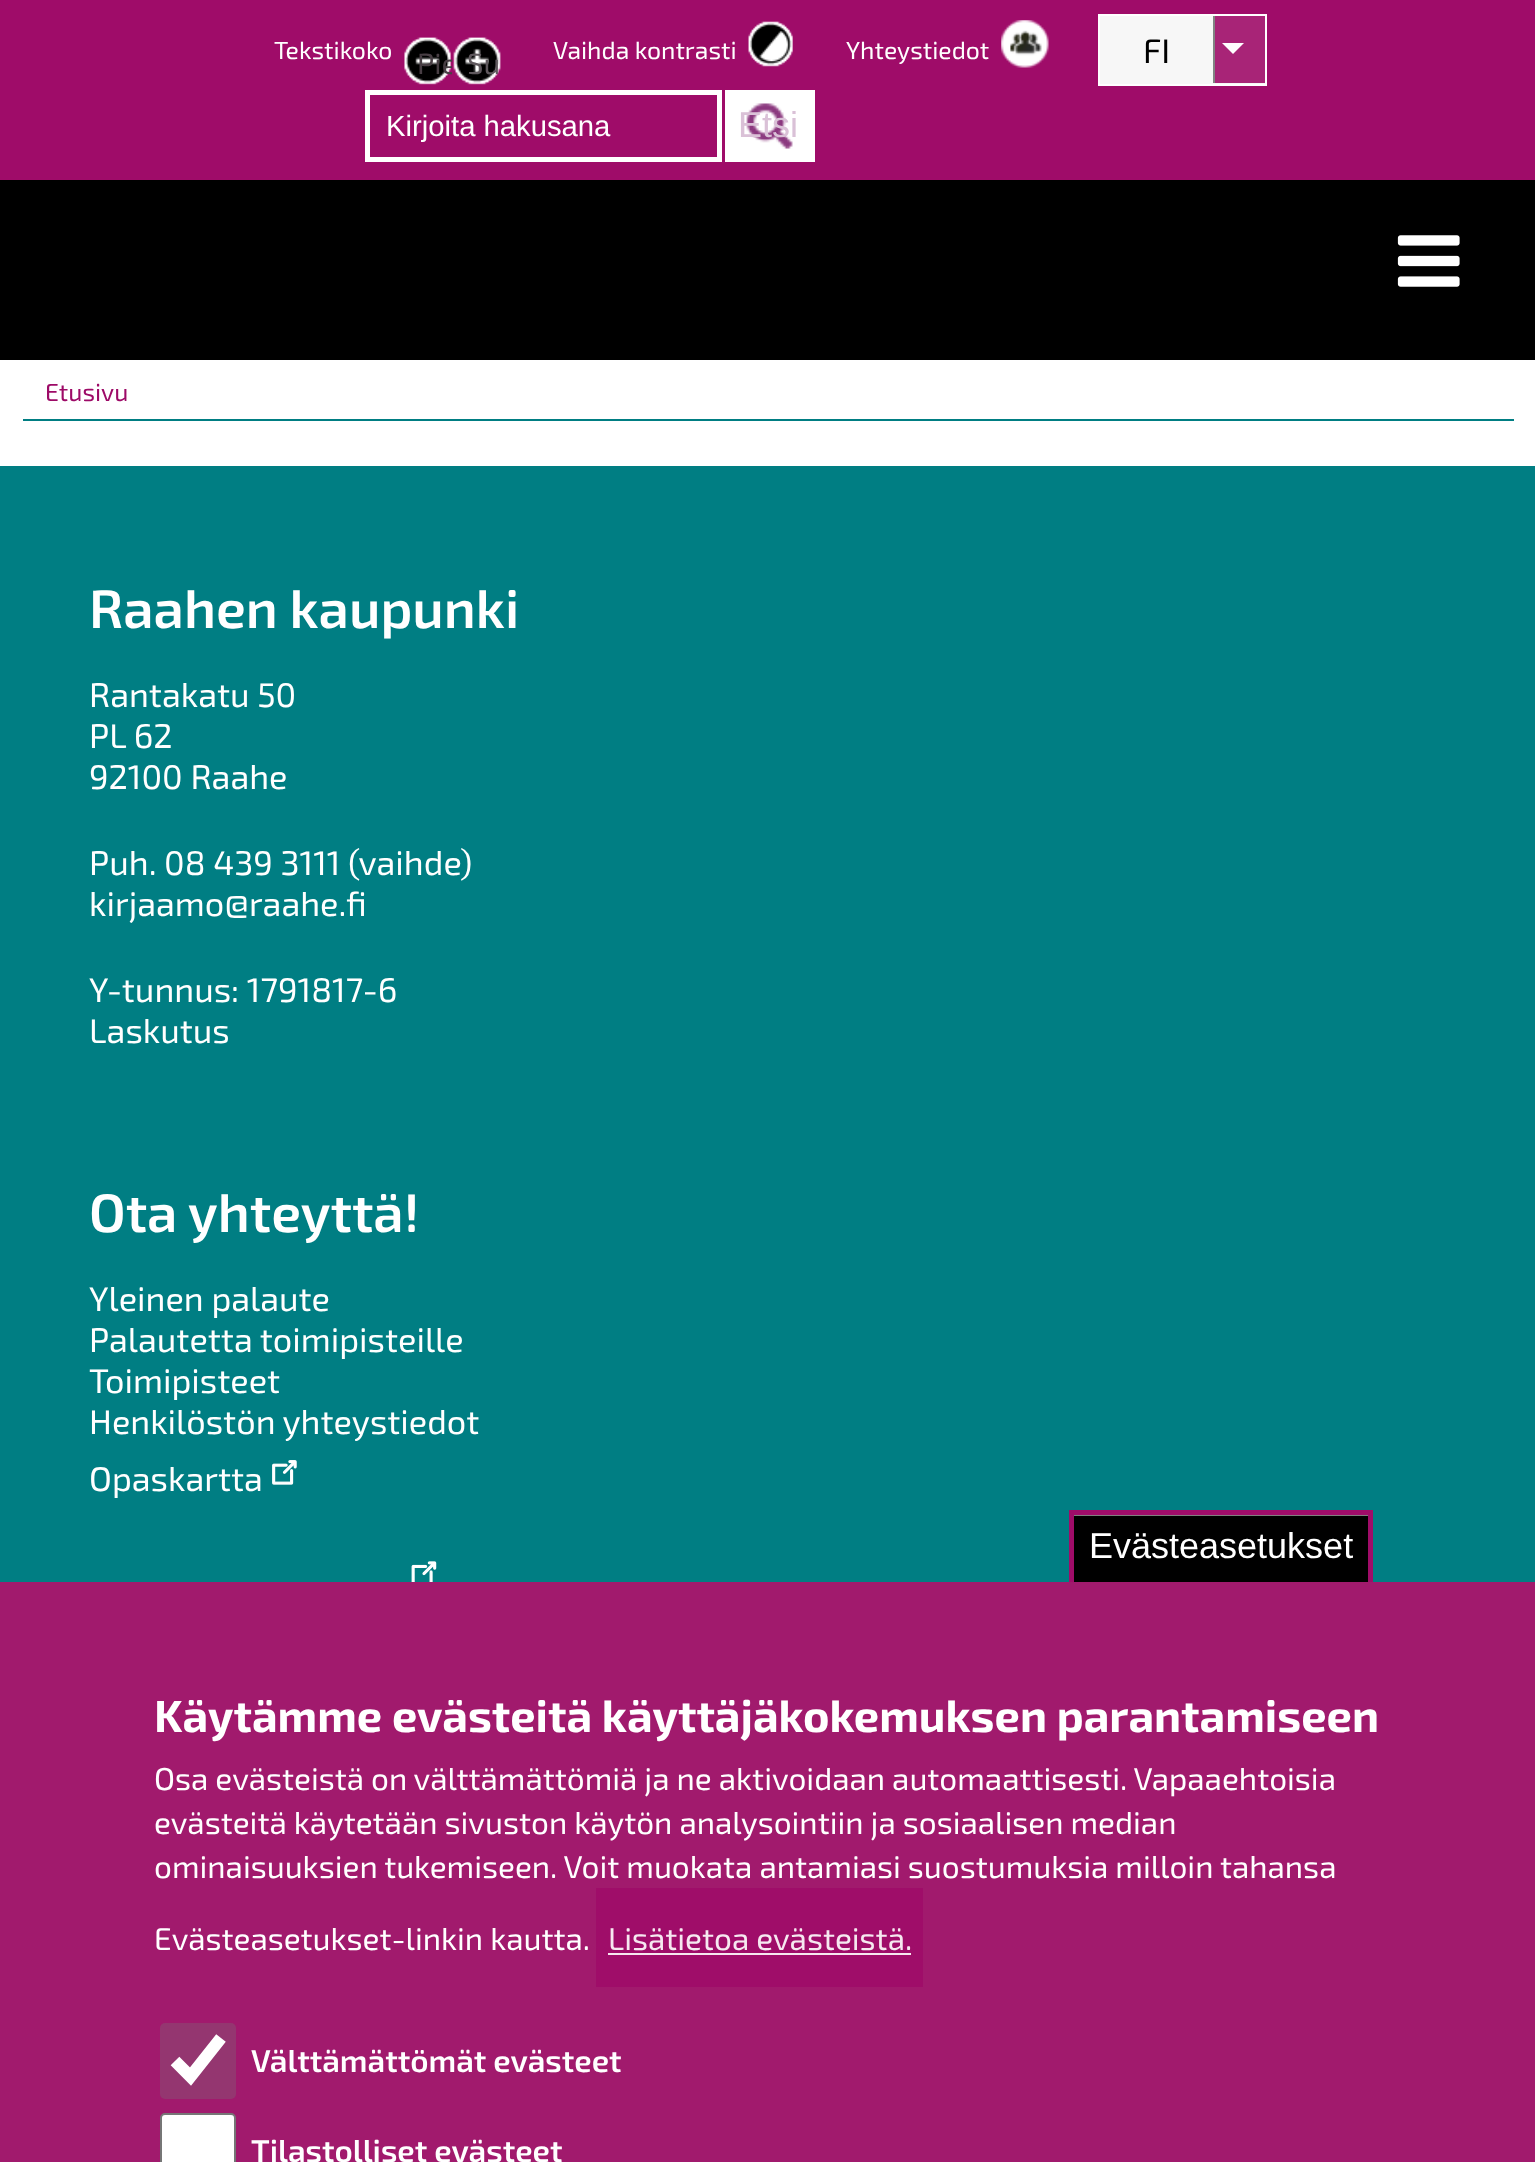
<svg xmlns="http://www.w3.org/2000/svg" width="1535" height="2162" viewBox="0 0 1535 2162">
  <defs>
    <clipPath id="clip1"><rect x="403" y="36" width="49" height="50"/></clipPath>
  </defs>
  <rect width="100%" height="100%" fill="#000000"/>
  <rect x="0" y="0" width="1535" height="180" fill="#9f0c69"/>
  <text x="274" y="59" font-family="'Exo 2'" font-size="24.75" fill="#ffffff">Tekstikoko</text>
  <image x="404" y="37" width="47" height="48" href="img1.png"/>
  <g clip-path="url(#clip1)">
    <text x="417" y="74" font-family="'Exo 2'" font-size="29.25" fill="#483e44">Pie</text>
  </g>
  <image x="453" y="37" width="48" height="48" href="img2.png"/>
  <text x="467" y="74" font-family="'Exo 2'" font-size="29.25" fill="#5f585d">Su</text>
  <text x="553" y="59" font-family="'Exo 2'" font-size="24.75" fill="#ffffff">Vaihda kontrasti</text>
  <image x="748" y="21" width="45" height="46" href="img3.png"/>
  <text x="846" y="59" font-family="'Exo 2'" font-size="24.75" fill="#ffffff">Yhteystiedot</text>
  <image x="1001" y="20" width="48" height="48" href="img4.png"/>
  <rect x="1099" y="15" width="167" height="70" fill="#f7f7f7" stroke="#ffffff" stroke-width="2"/>
  <rect x="1213" y="16" width="2" height="67" fill="#828282"/>
  <text x="1143" y="63" font-family="'Exo 2'" font-size="34" fill="#000000">FI</text>
  <rect x="1215" y="16" width="50" height="67" fill="#a82477"/>
  <path d="M1222 43H1244L1233 54Z" fill="#fefefe"/>
  <rect x="367.5" y="92.5" width="352" height="67" fill="none" stroke="#ffffff" stroke-width="5"/>
  <text x="386" y="136" font-family="Liberation Sans" font-size="29.25" fill="#ffffff">Kirjoita hakusana</text>
  <rect x="725" y="90" width="90" height="72" fill="#ffffff"/>
  <image x="746" y="103" width="47" height="46" href="img5.png"/>
  <text x="738" y="137" font-family="Liberation Sans" font-size="36" fill="#dac1d7">Etsi</text>
  <image x="1397" y="235" width="63" height="52" href="img6.png"/>
  <rect x="0" y="360" width="1535" height="106" fill="#ffffff"/>
  <rect x="23" y="419" width="1491" height="2" fill="#007e83"/>
  <text x="45" y="401" font-family="'Exo 2'" font-size="24.75" fill="#9d0a67">Etusivu</text>
  <rect x="0" y="466" width="1535" height="1116" fill="#007e83"/>
  <text x="89" y="628" font-family="'Exo 2'" font-size="54" font-weight="600" fill="#ffffff">Raahen kaupunki</text>
  <text x="89" y="707" font-family="'Exo 2'" font-size="34.25" fill="#ffffff">Rantakatu 50</text>
  <text x="89" y="748" font-family="'Exo 2'" font-size="34.25" fill="#ffffff">PL 62</text>
  <text x="89" y="789" font-family="'Exo 2'" font-size="34.25" fill="#ffffff">92100 Raahe</text>
  <text x="89" y="875" font-family="'Exo 2'" font-size="34.25" fill="#ffffff">Puh. 08 439 3111 (vaihde)</text>
  <text x="89" y="916" font-family="'Exo 2'" font-size="34.25" fill="#ffffff">kirjaamo@raahe.fi</text>
  <text x="89" y="1002" font-family="'Exo 2'" font-size="34.25" fill="#ffffff">Y-tunnus: 1791817-6</text>
  <text x="89" y="1043" font-family="'Exo 2'" font-size="34.25" fill="#ffffff">Laskutus</text>
  <text x="89" y="1232" font-family="'Exo 2'" font-size="54" font-weight="600" fill="#ffffff">Ota yhteyttä!</text>
  <text x="89" y="1311" font-family="'Exo 2'" font-size="34.25" fill="#ffffff">Yleinen palaute</text>
  <text x="89" y="1352" font-family="'Exo 2'" font-size="34.25" fill="#ffffff">Palautetta toimipisteille</text>
  <text x="89" y="1393" font-family="'Exo 2'" font-size="34.25" fill="#ffffff">Toimipisteet</text>
  <text x="89" y="1434" font-family="'Exo 2'" font-size="34.25" fill="#ffffff">Henkilöstön yhteystiedot</text>
  <text x="89" y="1491" font-family="'Exo 2'" font-size="34.25" fill="#ffffff">Opaskartta</text>
  <image x="272" y="1460" width="25" height="25" href="img7.png"/>
  <image x="411" y="1561" width="26" height="21" href="img8.png"/>
  <rect x="0" y="1582" width="1535" height="580" fill="#a11a6d"/>
  <rect x="1074" y="1516" width="294" height="66" fill="#000000"/>
  <rect x="1073" y="1515" width="295" height="1" fill="#808080"/>
  <rect x="1069" y="1510" width="304" height="5" fill="#9f0c69"/>
  <rect x="1368" y="1510" width="5" height="72" fill="#9f0c69"/>
  <rect x="1069" y="1510" width="5" height="72" fill="#9f0c69"/>
  <text x="1089" y="1558" font-family="Liberation Sans" font-size="36" fill="#ffffff">Evästeasetukset</text>
  <text x="154" y="1732" font-family="'Exo 2'" font-size="45" font-weight="bold" fill="#ffffff">Käytämme evästeitä käyttäjäkokemuksen parantamiseen</text>
  <text x="154" y="1790" font-family="'Exo 2'" font-size="31.5" fill="#ffffff">Osa evästeistä on välttämättömiä ja ne aktivoidaan automaattisesti. Vapaaehtoisia</text>
  <text x="154" y="1834" font-family="'Exo 2'" font-size="31.5" fill="#ffffff">evästeitä käytetään sivuston käytön analysointiin ja sosiaalisen median</text>
  <text x="154" y="1878" font-family="'Exo 2'" font-size="31.5" fill="#ffffff">ominaisuuksien tukemiseen. Voit muokata antamiasi suostumuksia milloin tahansa</text>
  <text x="154" y="1950" font-family="'Exo 2'" font-size="31.5" fill="#ffffff">Evästeasetukset-linkin kautta.</text>
  <rect x="596" y="1888" width="327" height="99" fill="#9f0d69"/>
  <text x="608" y="1950" font-family="'Exo 2'" font-size="31.5" fill="#f6e8f0">Lisätietoa evästeistä.</text>
  <rect x="608" y="1953" width="303" height="2" fill="#f6e8f0"/>
  <rect x="160" y="2023" width="76" height="76" rx="5" fill="#943670"/>
  <path d="M175 2061L190.5 2076.5L221 2038" fill="none" stroke="#ffffff" stroke-width="12.2"/>
  <text x="251" y="2072" font-family="'Exo 2'" font-size="31.5" font-weight="600" fill="#ffffff">Välttämättömät evästeet</text>
  <rect x="161" y="2114" width="74" height="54" rx="4" fill="#ffffff" stroke="#767676" stroke-width="2"/>
  <text x="251" y="2162" font-family="'Exo 2'" font-size="31.5" font-weight="600" fill="#ffffff">Tilastolliset evästeet</text>
</svg>
